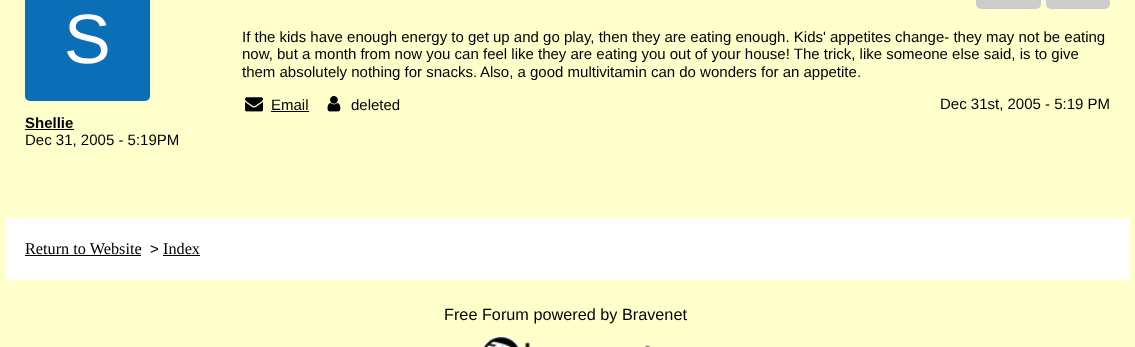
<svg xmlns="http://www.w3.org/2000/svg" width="1135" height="347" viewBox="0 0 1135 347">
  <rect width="100%" height="100%" fill="#ffffcc"/>
  <rect x="25" y="-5" width="125" height="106" rx="5" fill="#0a6fb7"/>
  <text x="64" y="63" font-family="Liberation Sans" font-size="70" fill="#ffffff">S</text>
  <text x="25" y="128" font-family="Liberation Sans" font-size="15" font-weight="bold" fill="#000000">Shellie</text>
  <rect x="25" y="129" width="49" height="1" fill="#000000"/>
  <text x="25" y="145" font-family="Liberation Sans" font-size="15" fill="#000000">Dec 31, 2005 - 5:19PM</text>
  <rect x="976" y="-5" width="65" height="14" rx="5" fill="#cccccc"/>
  <rect x="1046" y="-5" width="64" height="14" rx="5" fill="#cccccc"/>
  <text x="242" y="42" font-family="Liberation Sans" font-size="15" fill="#000000">If the kids have enough energy to get up and go play, then they are eating enough. Kids' appetites change- they may not be eating</text>
  <text x="242" y="59" font-family="Liberation Sans" font-size="15" fill="#000000">now, but a month from now you can feel like they are eating you out of your house! The trick, like someone else said, is to give</text>
  <text x="242" y="77" font-family="Liberation Sans" font-size="15" fill="#000000">them absolutely nothing for snacks.</text>
  <text x="480" y="77" font-family="Liberation Sans" font-size="15" fill="#000000">Also, a good multivitamin can do wonders for an appetite.</text>
  <image x="245" y="97" width="18" height="15" href="img1.png"/>
  <text x="271" y="110" font-family="Liberation Sans" font-size="15" fill="#000000">Email</text>
  <rect x="271" y="111" width="38" height="1" fill="#000000"/>
  <image x="327" y="96" width="14" height="16" href="img2.png"/>
  <text x="351" y="110" font-family="Liberation Sans" font-size="15" fill="#000000">deleted</text>
  <text x="940" y="109" font-family="Liberation Sans" font-size="15" fill="#000000">Dec 31st, 2005 - 5:19 PM</text>
  <rect x="6" y="218" width="1123" height="62" fill="#ffffff"/>
  <text x="25" y="254" font-family="Liberation Serif" font-size="16.25" fill="#000000">Return to Website</text>
  <rect x="25" y="255" width="116" height="1" fill="#000000"/>
  <text x="150" y="254" font-family="Liberation Sans" font-size="15" fill="#000000">&gt;</text>
  <text x="163" y="254" font-family="Liberation Serif" font-size="16.25" fill="#000000">Index</text>
  <rect x="163" y="255" width="37" height="1" fill="#000000"/>
  <text x="444" y="320" font-family="Liberation Sans" font-size="16.25" fill="#000000">Free Forum powered by Bravenet</text>
  <image x="482" y="335" width="169" height="12" href="img3.png"/>
</svg>
